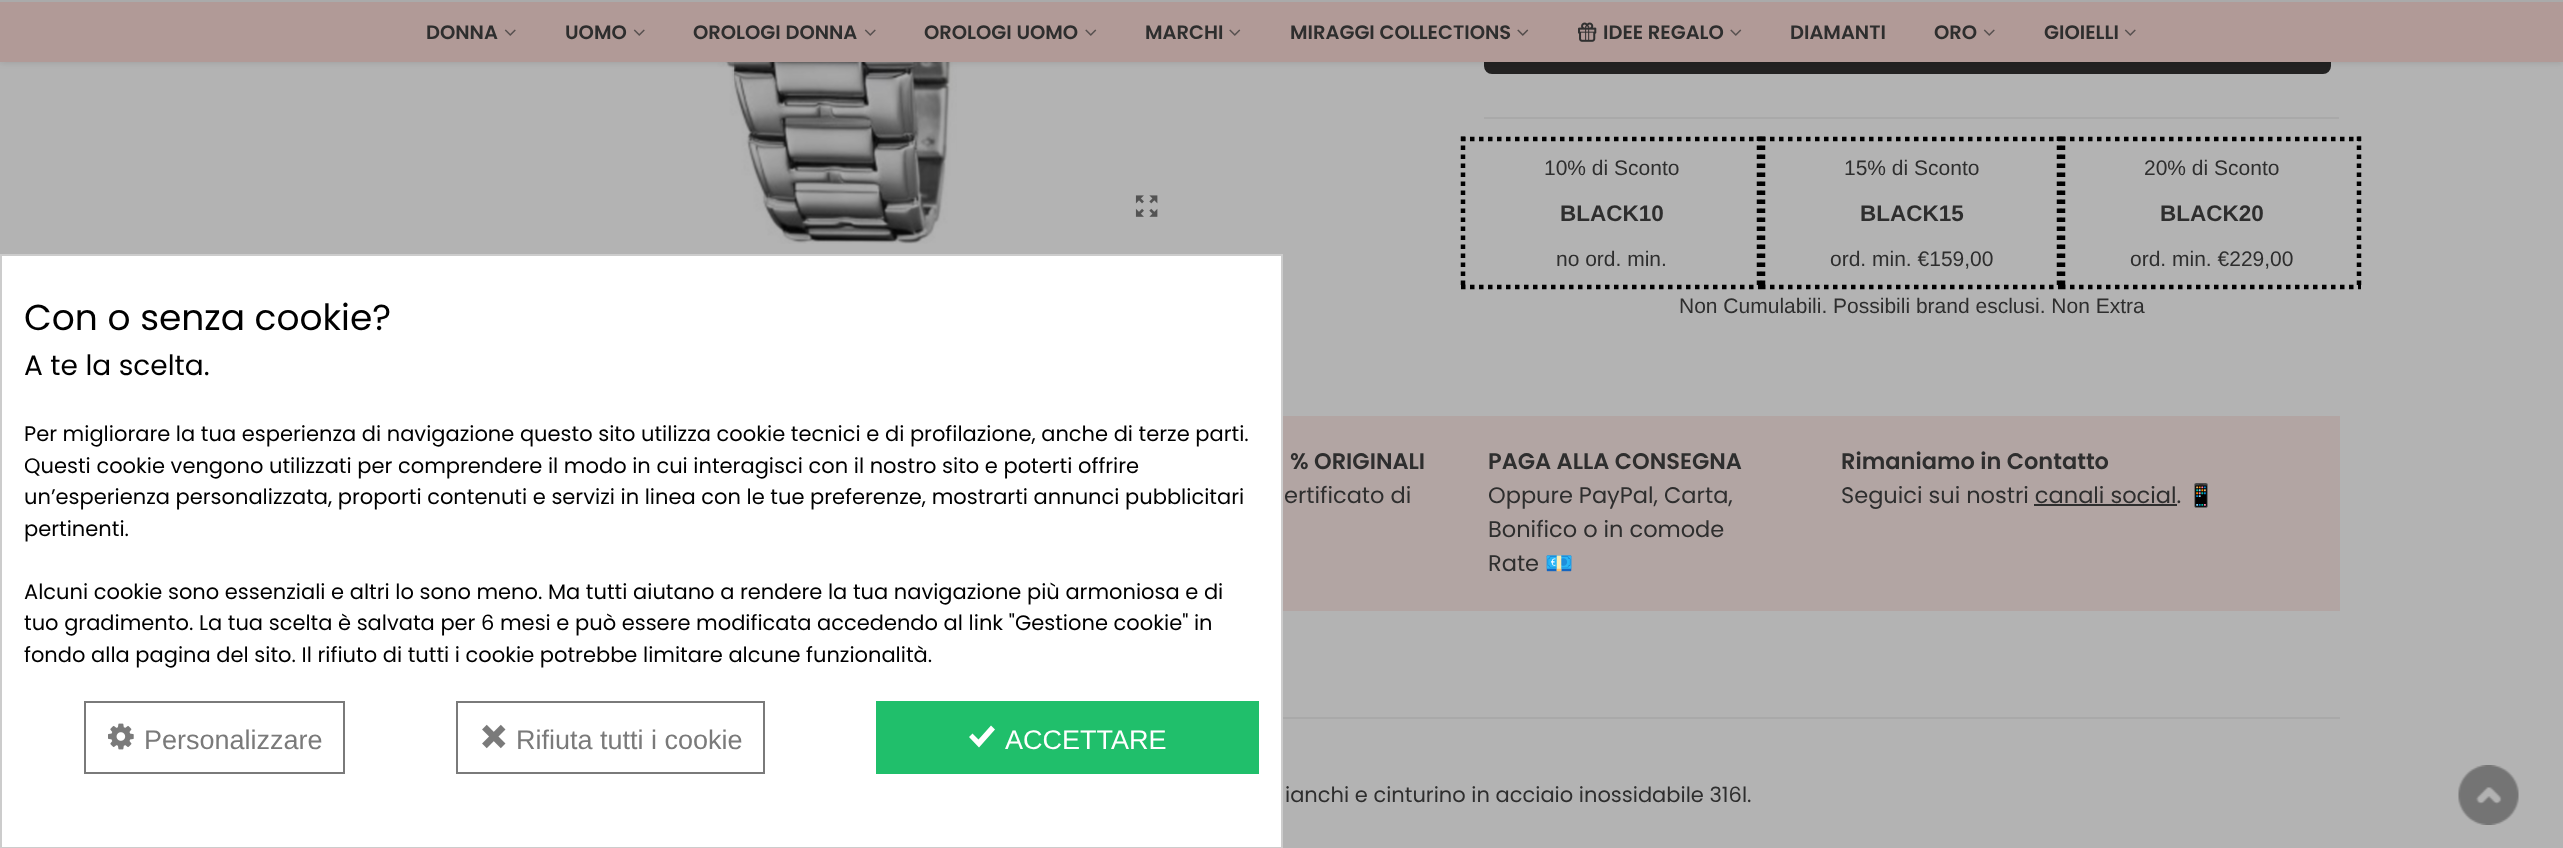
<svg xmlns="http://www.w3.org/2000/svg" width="2563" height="848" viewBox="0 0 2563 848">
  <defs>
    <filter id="blur1" x="-50%" y="-200%" width="200%" height="500%"><feGaussianBlur stdDeviation="3"/></filter>
  </defs>
  <rect width="100%" height="100%" fill="#b3b3b3"/>
  <image x="694" y="62" width="263" height="182" href="img5.png"/>
  <rect x="1485.5" y="-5.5" width="844" height="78" rx="6.5" fill="#232222" stroke="#232222" stroke-width="3"/>
  <rect x="0" y="2" width="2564" height="61" fill="#000000" fill-opacity="0.1" filter="url(#blur1)"/>
  <rect x="0" y="2" width="2563" height="60" fill="#b19a97"/>
  <rect x="0" y="0" width="2563" height="2" fill="#aaaaaa"/>
  <text x="426" y="39" font-family="Poppins" font-size="19.5" font-weight="600" fill="#2e2e2e">DONNA</text>
  <image x="504" y="29" width="12" height="7" href="img1.png"/>
  <text x="565" y="39" font-family="Poppins" font-size="19.5" font-weight="600" fill="#2e2e2e">UOMO</text>
  <image x="633" y="29" width="12" height="7" href="img1.png"/>
  <text x="693" y="39" font-family="Poppins" font-size="19.5" font-weight="600" fill="#2e2e2e">OROLOGI DONNA</text>
  <image x="864" y="29" width="12" height="7" href="img1.png"/>
  <text x="924" y="39" font-family="Poppins" font-size="19.5" font-weight="600" fill="#2e2e2e">OROLOGI UOMO</text>
  <image x="1085" y="29" width="12" height="7" href="img2.png"/>
  <text x="1145" y="39" font-family="Poppins" font-size="19.5" font-weight="600" fill="#2e2e2e">MARCHI</text>
  <image x="1229" y="29" width="12" height="7" href="img2.png"/>
  <text x="1290" y="39" font-family="Poppins" font-size="19.5" font-weight="600" fill="#2e2e2e">MIRAGGI COLLECTIONS</text>
  <image x="1517" y="29" width="12" height="7" href="img3.png"/>
  <image x="1578" y="22" width="19" height="20" href="img4.png"/>
  <text x="1603" y="39" font-family="Poppins" font-size="19.5" font-weight="600" fill="#2e2e2e">IDEE REGALO</text>
  <image x="1730" y="29" width="12" height="7" href="img2.png"/>
  <text x="1790" y="39" font-family="Poppins" font-size="19.5" font-weight="600" fill="#2e2e2e">DIAMANTI</text>
  <text x="1934" y="39" font-family="Poppins" font-size="19.5" font-weight="600" fill="#2e2e2e">ORO</text>
  <image x="1983" y="29" width="12" height="7" href="img1.png"/>
  <text x="2044" y="39" font-family="Poppins" font-size="19.5" font-weight="600" fill="#2e2e2e">GIOIELLI</text>
  <image x="2124" y="29" width="12" height="7" href="img1.png"/>
  <image x="1135" y="195" width="23" height="22" href="img6.png"/>
  <rect x="1484" y="117" width="855" height="2" fill="#a9a9a9"/>
  <path d="M1461 139H1761" fill="none" stroke="#000000" stroke-width="4.5" stroke-dasharray="4.5 4.5"/>
  <path d="M1759 136.5V289.5" fill="none" stroke="#000000" stroke-width="4.5" stroke-dasharray="4.5 4.5"/>
  <path d="M1461 287H1761" fill="none" stroke="#000000" stroke-width="4.5" stroke-dasharray="4.5 4.5"/>
  <path d="M1463 136.5V289.5" fill="none" stroke="#000000" stroke-width="4.5" stroke-dasharray="4.5 4.5"/>
  <text x="1544" y="175" font-family="Liberation Sans" font-size="21" fill="#2e2e2e">10% di Sconto</text>
  <text x="1560" y="221" font-family="Liberation Sans" font-size="22.5" font-weight="bold" fill="#2e2e2e">BLACK10</text>
  <text x="1556" y="266" font-family="Liberation Sans" font-size="21" fill="#2e2e2e">no ord. min.</text>
  <path d="M1761 139H2061" fill="none" stroke="#000000" stroke-width="4.5" stroke-dasharray="4.5 4.5"/>
  <path d="M2059 136.5V289.5" fill="none" stroke="#000000" stroke-width="4.5" stroke-dasharray="4.5 4.5"/>
  <path d="M1761 287H2061" fill="none" stroke="#000000" stroke-width="4.5" stroke-dasharray="4.5 4.5"/>
  <path d="M1763 136.5V289.5" fill="none" stroke="#000000" stroke-width="4.5" stroke-dasharray="4.5 4.5"/>
  <text x="1844" y="175" font-family="Liberation Sans" font-size="21" fill="#2e2e2e">15% di Sconto</text>
  <text x="1860" y="221" font-family="Liberation Sans" font-size="22.5" font-weight="bold" fill="#2e2e2e">BLACK15</text>
  <text x="1830" y="266" font-family="Liberation Sans" font-size="21" fill="#2e2e2e">ord. min. €159,00</text>
  <path d="M2061 139H2361" fill="none" stroke="#000000" stroke-width="4.5" stroke-dasharray="4.5 4.5"/>
  <path d="M2359 136.5V289.5" fill="none" stroke="#000000" stroke-width="4.5" stroke-dasharray="4.5 4.5"/>
  <path d="M2061 287H2361" fill="none" stroke="#000000" stroke-width="4.5" stroke-dasharray="4.5 4.5"/>
  <path d="M2063 136.5V289.5" fill="none" stroke="#000000" stroke-width="4.5" stroke-dasharray="4.5 4.5"/>
  <text x="2144" y="175" font-family="Liberation Sans" font-size="21" fill="#2e2e2e">20% di Sconto</text>
  <text x="2160" y="221" font-family="Liberation Sans" font-size="22.5" font-weight="bold" fill="#2e2e2e">BLACK20</text>
  <text x="2130" y="266" font-family="Liberation Sans" font-size="21" fill="#2e2e2e">ord. min. €229,00</text>
  <text x="1679" y="313" font-family="Liberation Sans" font-size="21" fill="#2e2e2e">Non Cumulabili. Possibili brand esclusi. Non Extra</text>
  <rect x="1283" y="416" width="1057" height="195" fill="#b2a5a3"/>
  <text x="1290" y="469" font-family="Poppins" font-size="22.5" font-weight="600" fill="#2e2e2e">% ORIGINALI</text>
  <text x="1284" y="503" font-family="Poppins" font-size="22.5" fill="#2e2e2e">ertificato di</text>
  <text x="1488" y="469" font-family="Poppins" font-size="22.5" font-weight="600" fill="#2e2e2e">PAGA ALLA CONSEGNA</text>
  <text x="1488" y="503" font-family="Poppins" font-size="22.5" fill="#2e2e2e">Oppure PayPal, Carta,</text>
  <text x="1488" y="537" font-family="Poppins" font-size="22.5" fill="#2e2e2e">Bonifico o in comode</text>
  <text x="1488" y="571" font-family="Poppins" font-size="22.5" fill="#2e2e2e">Rate</text>
  <text x="1545" y="571" font-family="Noto Color Emoji" font-size="22.5" fill="#2e2e2e">💶</text>
  <text x="1841" y="469" font-family="Poppins" font-size="22.5" font-weight="600" fill="#2e2e2e">Rimaniamo in Contatto</text>
  <text x="1841" y="503" font-family="Poppins" font-size="22.5" fill="#2e2e2e">Seguici sui nostri canali social.</text>
  <rect x="2034" y="504" width="143" height="2" fill="#2e2e2e"/>
  <text x="2187" y="503" font-family="Noto Color Emoji" font-size="22.5" fill="#2e2e2e">📱</text>
  <rect x="1283" y="717" width="1057" height="2" fill="#a9a9a9"/>
  <text x="1285" y="802" font-family="Poppins" font-size="21" fill="#2e2e2e">ianchi e cinturino in acciaio inossidabile 316l.</text>
  <image x="2458" y="765" width="61" height="60" href="img7.png"/>
  <rect x="1" y="255" width="1281" height="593" fill="#ffffff" stroke="#cccccc" stroke-width="2"/>
  <text x="24" y="330" font-family="Poppins" font-size="36" fill="#000000">Con o senza cookie?</text>
  <text x="24" y="375" font-family="Poppins" font-size="28" fill="#000000">A te la scelta.</text>
  <text x="24" y="441" font-family="Poppins" font-size="21" fill="#000000">Per migliorare la tua esperienza di navigazione questo sito utilizza cookie tecnici e di profilazione, anche di terze parti.</text>
  <text x="24" y="473" font-family="Poppins" font-size="21" fill="#000000">Questi cookie vengono utilizzati per comprendere il modo in cui interagisci con il nostro sito e poterti offrire</text>
  <text x="24" y="504" font-family="Poppins" font-size="21" fill="#000000">un’esperienza personalizzata, proporti contenuti e servizi in linea con le tue preferenze, mostrarti annunci pubblicitari</text>
  <text x="24" y="536" font-family="Poppins" font-size="21" fill="#000000">pertinenti.</text>
  <text x="24" y="599" font-family="Poppins" font-size="21" fill="#000000">Alcuni cookie sono essenziali e altri lo sono meno. Ma tutti aiutano a rendere la tua navigazione più armoniosa e di</text>
  <text x="24" y="630" font-family="Poppins" font-size="21" fill="#000000">tuo gradimento. La tua scelta è salvata per 6 mesi e può essere modificata accedendo al link "Gestione cookie" in</text>
  <text x="24" y="662" font-family="Poppins" font-size="21" fill="#000000">fondo alla pagina del sito. Il rifiuto di tutti i cookie potrebbe limitare alcune funzionalità.</text>
  <rect x="85" y="702" width="259" height="71" fill="none" stroke="#7a7a7a" stroke-width="2"/>
  <image x="108" y="723" width="26" height="27" href="img8.png"/>
  <text x="144" y="749" font-family="Liberation Sans" font-size="27" fill="#7a7a7a">Personalizzare</text>
  <rect x="457" y="702" width="307" height="71" fill="none" stroke="#7a7a7a" stroke-width="2"/>
  <image x="482" y="724" width="24" height="25" href="img9.png"/>
  <text x="516" y="749" font-family="Liberation Sans" font-size="27" fill="#7a7a7a">Rifiuta tutti i cookie</text>
  <rect x="876" y="701" width="383" height="73" fill="#20bf6b"/>
  <path d="M995 729.5L979 747.5L969 737L972.5 733.5L978.5 739.5L991 725.5Z" fill="#ffffff"/>
  <text x="1005" y="749" font-family="Liberation Sans" font-size="27" fill="#ffffff">ACCETTARE</text>
</svg>
